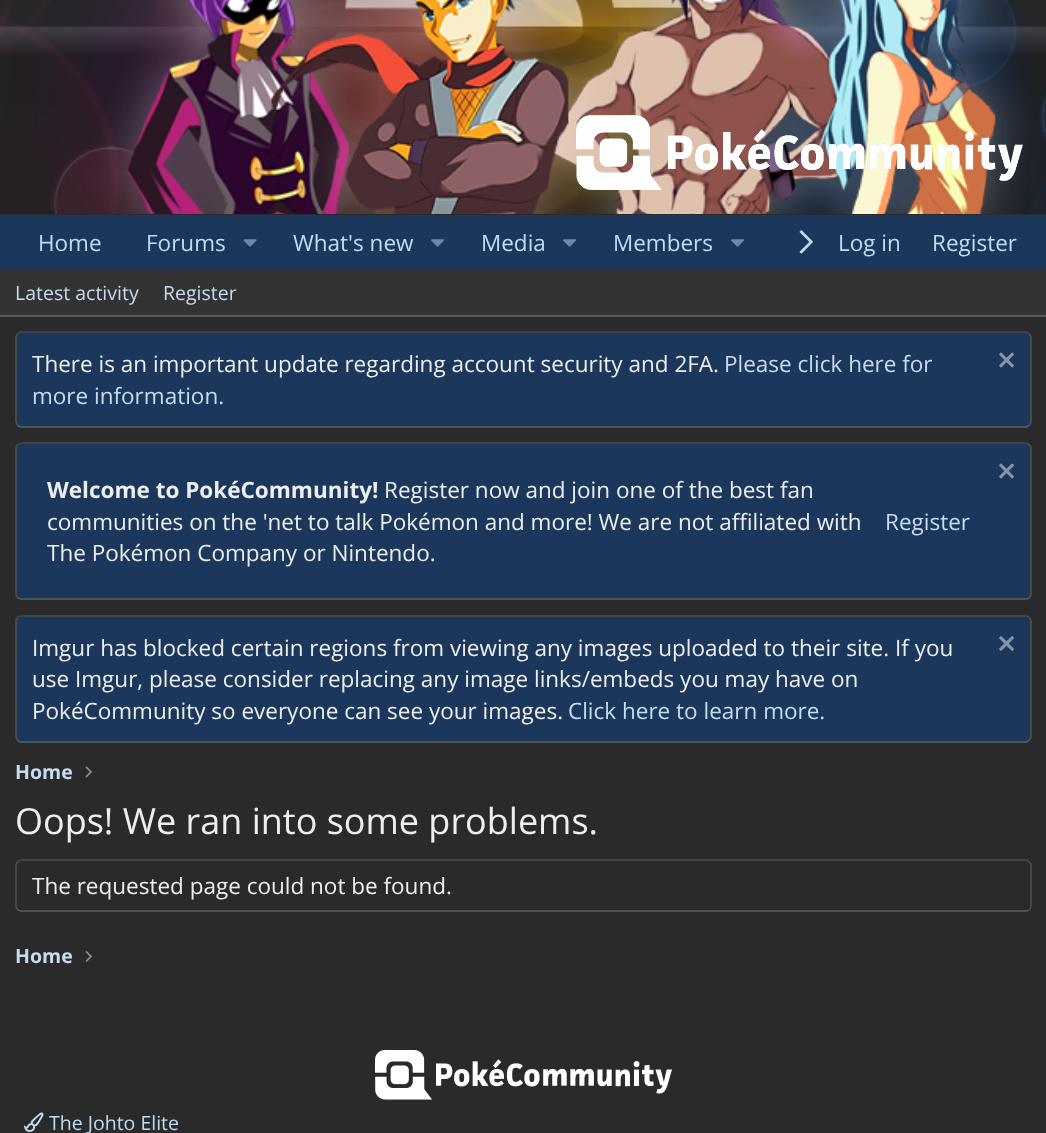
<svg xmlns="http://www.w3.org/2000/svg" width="1046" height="1133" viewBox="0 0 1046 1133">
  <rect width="100%" height="100%" fill="#2a2a2a"/>
  <image x="0" y="0" width="1046" height="214" href="img1.png"/>
  <image x="576" y="115" width="447" height="75" href="img2.png"/>
  <rect x="0" y="215" width="1046" height="55" fill="#1b385c"/>
  <text x="38" y="251" font-family="Open Sans" font-size="22.5" fill="#bcdef5">Home</text>
  <text x="146" y="251" font-family="Open Sans" font-size="22.5" fill="#bcdef5">Forums</text>
  <image x="243" y="239" width="14" height="8" href="img3.png"/>
  <text x="293" y="251" font-family="Open Sans" font-size="22.5" fill="#bcdef5">What's new</text>
  <image x="431" y="239" width="13" height="8" href="img4.png"/>
  <text x="481" y="251" font-family="Open Sans" font-size="22.5" fill="#bcdef5">Media</text>
  <image x="563" y="239" width="13" height="8" href="img4.png"/>
  <text x="613" y="251" font-family="Open Sans" font-size="22.5" fill="#bcdef5">Members</text>
  <image x="731" y="239" width="13" height="8" href="img4.png"/>
  <image x="799" y="230" width="14" height="24" href="img5.png"/>
  <text x="838" y="251" font-family="Open Sans" font-size="22.5" fill="#bcdef5">Log in</text>
  <text x="932" y="251" font-family="Open Sans" font-size="22.5" fill="#bcdef5">Register</text>
  <rect x="0" y="270" width="1046" height="45" fill="#333333"/>
  <rect x="0" y="315" width="1046" height="2" fill="#5d5d5d"/>
  <text x="15" y="300" font-family="Open Sans" font-size="19.5" fill="#c8dcf0">Latest activity</text>
  <text x="163" y="300" font-family="Open Sans" font-size="19.5" fill="#c8dcf0">Register</text>
  <rect x="15" y="332" width="1017" height="96" rx="6" fill="#1b385c"/>
  <path d="M17.5 334C18.5 333 19.5 332 21 332H1026C1027.5 332 1028.5 333 1029.5 334" fill="none" stroke="#494949" stroke-width="1.5"/>
  <path d="M1029.5 334L1031 337V422L1029.5 425" fill="none" stroke="#505050" stroke-width="1.5"/>
  <path d="M1029.5 425C1028.5 426 1027.5 427 1026 427H21C19.5 427 18.5 426 17.5 425" fill="none" stroke="#5d5d5d" stroke-width="1.5"/>
  <path d="M17.5 425L16 422V337L17.5 334" fill="none" stroke="#505050" stroke-width="1.5"/>
  <text x="32" y="372" font-family="Open Sans" font-size="22.5" fill="#eeeeee">There is an important update regarding account security and 2FA.</text>
  <text x="724" y="372" font-family="Open Sans" font-size="22.5" fill="#c8dcf0">Please click here for</text>
  <image x="999" y="352" width="15" height="16" href="img6.png"/>
  <text x="32" y="404" font-family="Open Sans" font-size="22.5" fill="#c8dcf0">more information.</text>
  <rect x="15" y="443" width="1017" height="157" rx="6" fill="#1b385c"/>
  <path d="M17.5 445C18.5 444 19.5 443 21 443H1026C1027.5 443 1028.5 444 1029.5 445" fill="none" stroke="#494949" stroke-width="1.5"/>
  <path d="M1029.5 445C1030.5 446 1031 447 1031 448.5V594C1031 595.5 1030.5 596.5 1029.5 597.5" fill="none" stroke="#505050" stroke-width="1.5"/>
  <path d="M1029.5 597.5C1028.5 598.5 1027.5 599 1026 599H21C19.5 599 18.5 598.5 17.5 597.5" fill="none" stroke="#5d5d5d" stroke-width="1.5"/>
  <path d="M17.5 597.5C16.5 596.5 16 595.5 16 594V448.5C16 447 16.5 446 17.5 445" fill="none" stroke="#505050" stroke-width="1.5"/>
  <image x="999" y="463" width="15" height="16" href="img6.png"/>
  <text x="47" y="498" font-family="Open Sans" font-size="22.5" font-weight="bold" fill="#eeeeee">Welcome to PokéCommunity!</text>
  <text x="384" y="498" font-family="Open Sans" font-size="22.5" fill="#eeeeee">Register now and join one of the best fan</text>
  <text x="47" y="530" font-family="Open Sans" font-size="22.5" fill="#eeeeee">communities on the 'net to talk Pokémon and more! We are not affiliated with</text>
  <text x="47" y="561" font-family="Open Sans" font-size="22.5" fill="#eeeeee">The Pokémon Company or Nintendo.</text>
  <text x="885" y="530" font-family="Open Sans" font-size="22.5" fill="#c8dcf0">Register</text>
  <rect x="15" y="615" width="1017" height="128" rx="6" fill="#1b385c"/>
  <path d="M17.5 617.5C18.5 616.5 19.5 616 21 616H1026C1027.5 616 1028.5 616.5 1029.5 617.5" fill="none" stroke="#494949" stroke-width="1.5"/>
  <path d="M1029.5 617.5L1031 620.5V737L1029.5 740" fill="none" stroke="#505050" stroke-width="1.5"/>
  <path d="M1029.5 740C1028.5 741 1027.5 742 1026 742H21C19.5 742 18.5 741 17.5 740" fill="none" stroke="#5d5d5d" stroke-width="1.5"/>
  <path d="M17.5 740L16 737V620.5L17.5 617.5" fill="none" stroke="#505050" stroke-width="1.5"/>
  <text x="32" y="656" font-family="Open Sans" font-size="22.5" fill="#eeeeee">Imgur has blocked certain regions from viewing any images uploaded to their site. If you</text>
  <image x="999" y="636" width="15" height="15" href="img7.png"/>
  <text x="32" y="687" font-family="Open Sans" font-size="22.5" fill="#eeeeee">use Imgur, please consider replacing any image links/embeds you may have on</text>
  <text x="32" y="719" font-family="Open Sans" font-size="22.5" fill="#eeeeee">PokéCommunity so everyone can see your images.</text>
  <text x="568" y="719" font-family="Open Sans" font-size="22.5" fill="#c8dcf0">Click here to learn more.</text>
  <text x="15" y="779" font-family="Open Sans" font-size="19.5" font-weight="bold" fill="#c8dcf0">Home</text>
  <image x="85" y="766" width="7" height="12" href="img8.png"/>
  <text x="15" y="834" font-family="Open Sans" font-size="36" fill="#eeeeee">Oops! We ran into some problems.</text>
  <path d="M17.5 862C18.5 861 19.5 860 21 860H1026C1027.5 860 1028.5 861 1029.5 862" fill="none" stroke="#494949" stroke-width="1.5"/>
  <path d="M1029.5 862C1030.5 863 1031 864 1031 865.5V906C1031 907.5 1030.5 908.5 1029.5 909.5" fill="none" stroke="#505050" stroke-width="1.5"/>
  <path d="M1029.5 909.5C1028.5 910.5 1027.5 911 1026 911H21C19.5 911 18.5 910.5 17.5 909.5" fill="none" stroke="#5d5d5d" stroke-width="1.5"/>
  <path d="M17.5 909.5C16.5 908.5 16 907.5 16 906V865.5C16 864 16.5 863 17.5 862" fill="none" stroke="#505050" stroke-width="1.5"/>
  <text x="32" y="894" font-family="Open Sans" font-size="22.5" fill="#eeeeee">The requested page could not be found.</text>
  <text x="15" y="963" font-family="Open Sans" font-size="19.5" font-weight="bold" fill="#c8dcf0">Home</text>
  <image x="85" y="951" width="7" height="11" href="img9.png"/>
  <image x="375" y="1050" width="297" height="50" href="img10.png"/>
  <image x="24" y="1112" width="20" height="20" href="img11.png"/>
  <text x="49" y="1130" font-family="Open Sans" font-size="19.5" fill="#bcdef5">The Johto Elite</text>
</svg>
